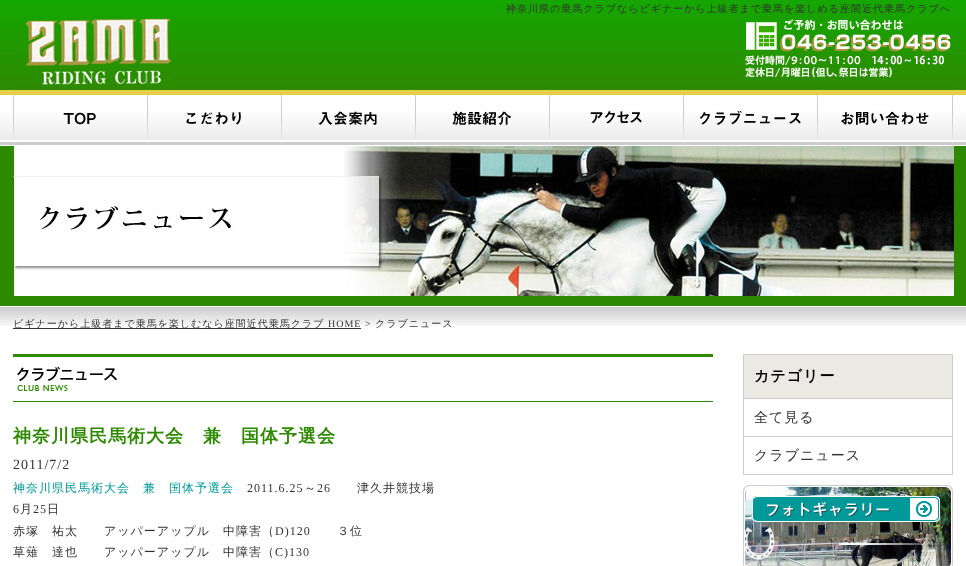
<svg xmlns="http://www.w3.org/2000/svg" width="966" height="566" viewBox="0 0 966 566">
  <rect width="100%" height="100%" fill="#ffffff"/>
  <image x="0" y="0" width="966" height="326" href="img1.png"/>
  <text x="506" y="12" font-family="WenQuanYi Zen Hei" font-size="10" font-weight="500" letter-spacing="1" fill="#333333">神奈川県の乗馬クラブならビギナーから上級者まで乗馬を楽しめる座間近代乗馬クラブへ</text>
  <image x="16" y="16" width="935" height="72" href="img2.png"/>
  <image x="13" y="95" width="83" height="44" href="img3.png"/>
  <image x="147" y="95" width="94" height="44" href="img4.png"/>
  <image x="281" y="95" width="96" height="44" href="img5.png"/>
  <image x="415" y="95" width="97" height="43" href="img6.png"/>
  <image x="549" y="95" width="93" height="43" href="img7.png"/>
  <image x="683" y="95" width="118" height="44" href="img8.png"/>
  <image x="817" y="95" width="136" height="44" href="img9.png"/>
  <image x="13" y="146" width="941" height="150" href="img10.png"/>
  <rect x="13" y="328" width="348" height="1" fill="#333333"/>
  <text x="13" y="327" font-family="WenQuanYi Zen Hei" font-size="10" font-weight="500" letter-spacing="1" fill="#333333">ビギナーから上級者まで乗馬を楽しむなら座間近代乗馬クラブ</text>
  <text x="328" y="327" font-family="Liberation Serif" font-size="10" letter-spacing="1" fill="#333333">HOME &gt;</text>
  <text x="375" y="327" font-family="WenQuanYi Zen Hei" font-size="10" font-weight="500" letter-spacing="1" fill="#333333">クラブニュース</text>
  <rect x="743.5" y="354.5" width="209" height="44" fill="#eae9e3" stroke="#cccccc"/>
  <text x="754" y="381" font-family="WenQuanYi Zen Hei" font-size="15" font-weight="bold" letter-spacing="1" fill="#000000">カテゴリー</text>
  <rect x="952" y="399" width="1" height="76" fill="#cccccc"/>
  <rect x="743" y="436" width="210" height="1" fill="#cccccc"/>
  <rect x="743" y="399" width="1" height="38" fill="#cccccc"/>
  <text x="754" y="422" font-family="WenQuanYi Zen Hei" font-size="14" font-weight="500" letter-spacing="1" fill="#333333">全て見る</text>
  <rect x="743" y="474" width="210" height="1" fill="#cccccc"/>
  <rect x="743" y="437" width="1" height="38" fill="#cccccc"/>
  <text x="754" y="460" font-family="WenQuanYi Zen Hei" font-size="14" font-weight="500" letter-spacing="1" fill="#333333">クラブニュース</text>
  <image x="743" y="485" width="210" height="81" href="img11.png"/>
  <image x="13" y="354" width="700" height="48" href="img12.png"/>
  <text x="13" y="442" font-family="WenQuanYi Zen Hei" font-size="18" font-weight="bold" letter-spacing="1" fill="#2d8900">神奈川県民馬術大会　兼　国体予選会</text>
  <text x="13" y="469" font-family="Liberation Serif" font-size="14" letter-spacing="1" fill="#333333">2011/7/2</text>
  <text x="13" y="492" font-family="WenQuanYi Zen Hei" font-size="12" font-weight="500" letter-spacing="1" fill="#009999">神奈川県民馬術大会　兼　国体予選会</text>
  <text x="247" y="492" font-family="Liberation Serif" font-size="12" letter-spacing="1" fill="#333333">2011.6.25</text>
  <text x="304" y="492" font-family="WenQuanYi Zen Hei" font-size="12" font-weight="500" letter-spacing="1" fill="#333333">～</text>
  <text x="317" y="492" font-family="Liberation Serif" font-size="12" letter-spacing="1" fill="#333333">26</text>
  <text x="357" y="492" font-family="WenQuanYi Zen Hei" font-size="12" font-weight="500" letter-spacing="1" fill="#333333">津久井競技場</text>
  <text x="13" y="513" font-family="Liberation Serif" font-size="12" letter-spacing="1" fill="#333333">6</text>
  <text x="20" y="513" font-family="WenQuanYi Zen Hei" font-size="12" font-weight="500" letter-spacing="1" fill="#333333">月</text>
  <text x="33" y="513" font-family="Liberation Serif" font-size="12" letter-spacing="1" fill="#333333">25</text>
  <text x="47" y="513" font-family="WenQuanYi Zen Hei" font-size="12" font-weight="500" letter-spacing="1" fill="#333333">日</text>
  <text x="13" y="535" font-family="WenQuanYi Zen Hei" font-size="12" font-weight="500" letter-spacing="1" fill="#333333">赤塚　祐太　　アッパーアップル　中障害（</text>
  <text x="275" y="535" font-family="Liberation Serif" font-size="12" letter-spacing="1" fill="#333333">D)120</text>
  <text x="337" y="535" font-family="WenQuanYi Zen Hei" font-size="12" font-weight="500" letter-spacing="1" fill="#333333">３位</text>
  <text x="13" y="556" font-family="WenQuanYi Zen Hei" font-size="12" font-weight="500" letter-spacing="1" fill="#333333">草薙　達也　　アッパーアップル　中障害（</text>
  <text x="275" y="556" font-family="Liberation Serif" font-size="12" letter-spacing="1" fill="#333333">C)130</text>
</svg>
